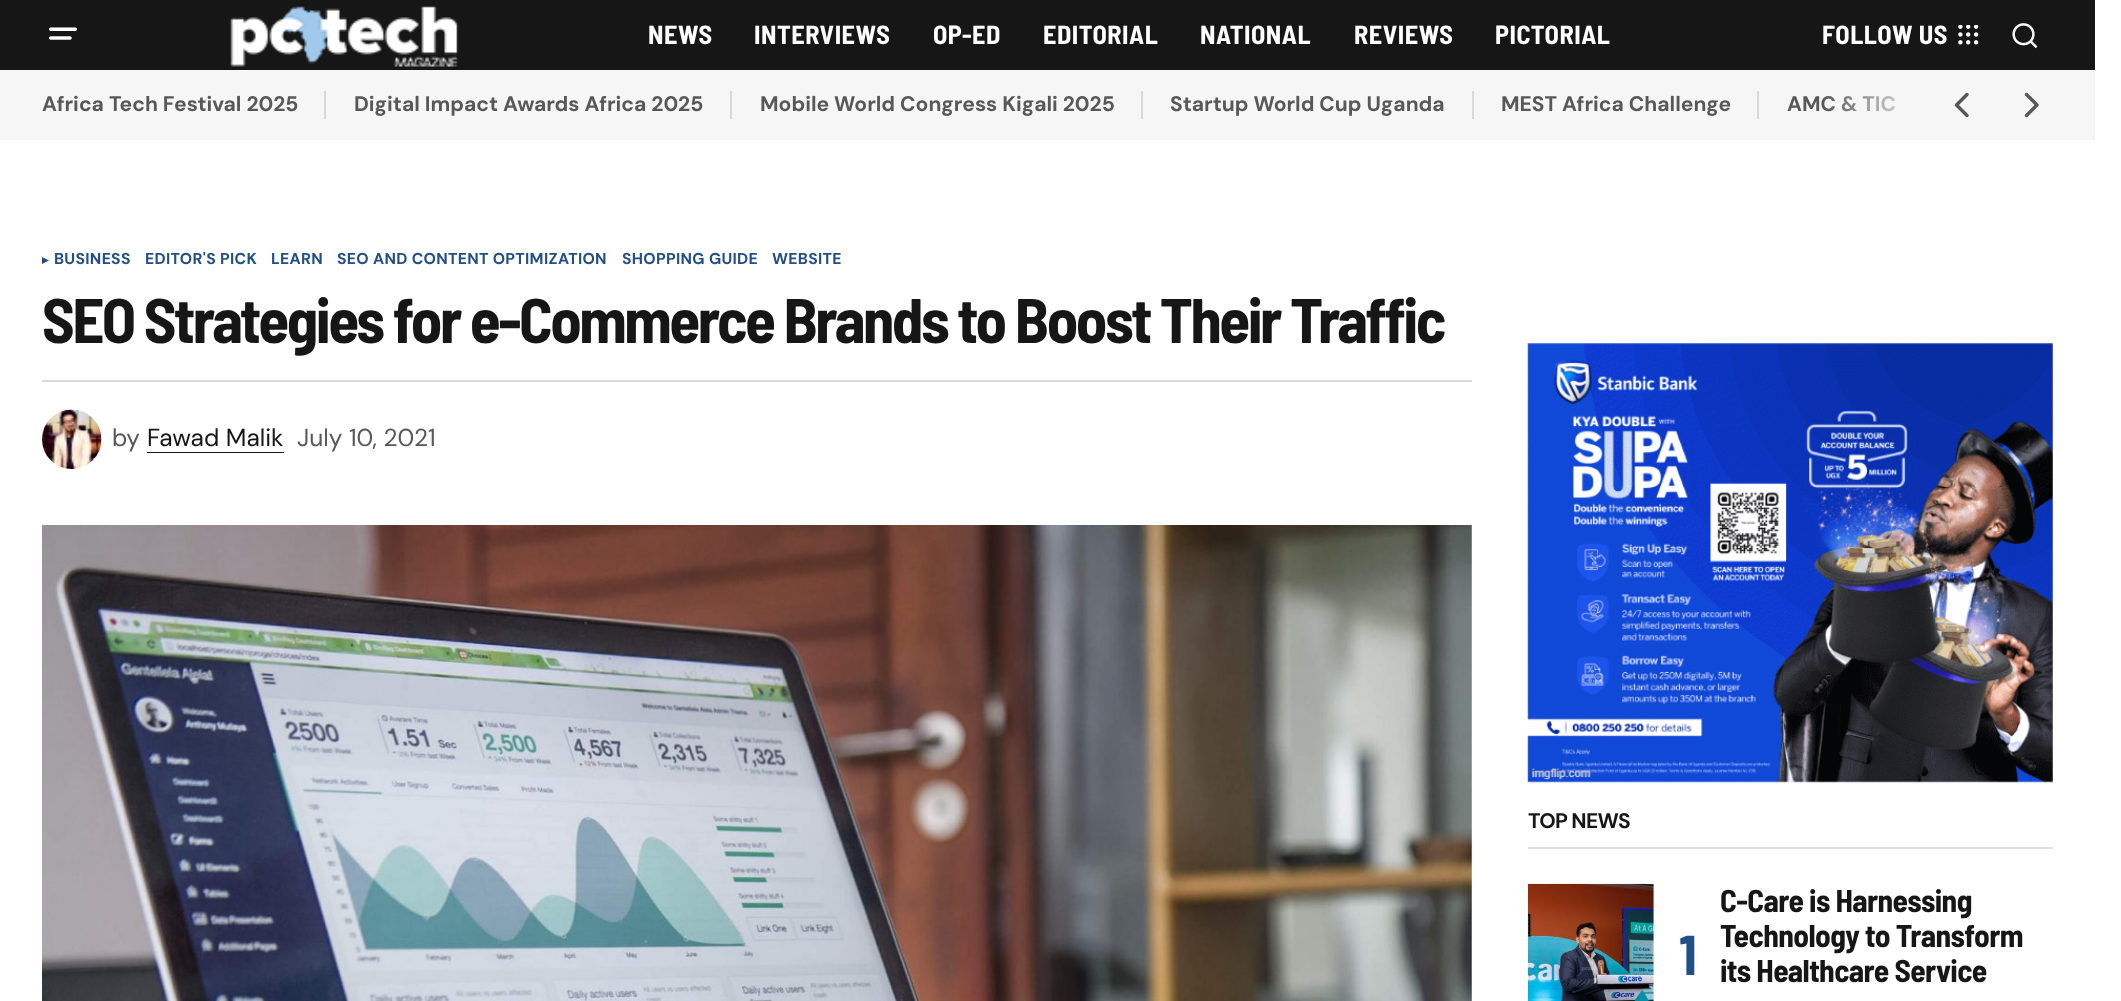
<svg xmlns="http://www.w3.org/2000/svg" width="2121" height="1001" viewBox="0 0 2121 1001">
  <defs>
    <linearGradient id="g1" gradientUnits="userSpaceOnUse" x1="1822" y1="105" x2="1927" y2="105"><stop offset="0" stop-color="#f6f6f6" stop-opacity="0"/><stop offset="1" stop-color="#f6f6f6"/></linearGradient>
  </defs>
  <rect width="100%" height="100%" fill="#ffffff"/>
  <rect x="0" y="0" width="2095" height="70" fill="#161616"/>
  <image x="49" y="27" width="28" height="13" href="img1.png"/>
  <image x="230" y="6" width="228" height="61" href="img2.png"/>
  <text x="648" y="44" font-family="Barlow Semi Condensed" font-size="26.25" font-weight="bold" letter-spacing="0.5" fill="#ffffff">NEWS</text>
  <text x="754" y="44" font-family="Barlow Semi Condensed" font-size="26.25" font-weight="bold" letter-spacing="0.5" fill="#ffffff">INTERVIEWS</text>
  <text x="933" y="44" font-family="Barlow Semi Condensed" font-size="26.25" font-weight="bold" letter-spacing="0.5" fill="#ffffff">OP-ED</text>
  <text x="1043" y="44" font-family="Barlow Semi Condensed" font-size="26.25" font-weight="bold" letter-spacing="0.5" fill="#ffffff">EDITORIAL</text>
  <text x="1200" y="44" font-family="Barlow Semi Condensed" font-size="26.25" font-weight="bold" letter-spacing="0.5" fill="#ffffff">NATIONAL</text>
  <text x="1354" y="44" font-family="Barlow Semi Condensed" font-size="26.25" font-weight="bold" letter-spacing="0.5" fill="#ffffff">REVIEWS</text>
  <text x="1495" y="44" font-family="Barlow Semi Condensed" font-size="26.25" font-weight="bold" letter-spacing="0.5" fill="#ffffff">PICTORIAL</text>
  <text x="1822" y="44" font-family="Barlow Semi Condensed" font-size="26.25" font-weight="bold" letter-spacing="0.5" fill="#ffffff">FOLLOW US</text>
  <image x="1958" y="25" width="21" height="20" href="img3.png"/>
  <image x="2012" y="23" width="26" height="26" href="img4.png"/>
  <rect x="0" y="70" width="2095" height="70" fill="#f6f6f6"/>
  <text x="42" y="111" font-family="DM Sans" font-size="21" font-weight="bold" fill="#585858">Africa Tech Festival 2025</text>
  <rect x="324" y="91" width="2" height="28" fill="#d9d9d9"/>
  <text x="354" y="111" font-family="DM Sans" font-size="21" font-weight="bold" fill="#585858">Digital Impact Awards Africa 2025</text>
  <rect x="730" y="91" width="2" height="28" fill="#d9d9d9"/>
  <text x="760" y="111" font-family="DM Sans" font-size="21" font-weight="bold" fill="#585858">Mobile World Congress Kigali 2025</text>
  <rect x="1141" y="91" width="2" height="28" fill="#d9d9d9"/>
  <text x="1170" y="111" font-family="DM Sans" font-size="21" font-weight="bold" fill="#585858">Startup World Cup Uganda</text>
  <rect x="1472" y="91" width="2" height="28" fill="#d9d9d9"/>
  <text x="1501" y="111" font-family="DM Sans" font-size="21" font-weight="bold" fill="#585858">MEST Africa Challenge</text>
  <rect x="1757" y="91" width="2" height="28" fill="#d9d9d9"/>
  <text x="1787" y="111" font-family="DM Sans" font-size="21" font-weight="bold" fill="#585858">AMC &amp; TIC</text>
  <rect x="1824" y="96" width="72" height="16" fill="url(#g1)"/>
  <image x="1954" y="92" width="15" height="26" href="img5.png"/>
  <image x="2024" y="92" width="15" height="26" href="img6.png"/>
  <path d="M49 260.5L42 264V257Z" fill="#225084"/>
  <text x="54" y="264" font-family="DM Sans" font-size="15.75" font-weight="bold" letter-spacing="0.3" fill="#225084">BUSINESS</text>
  <text x="145" y="264" font-family="DM Sans" font-size="15.75" font-weight="bold" letter-spacing="0.3" fill="#225084">EDITOR'S PICK</text>
  <text x="271" y="264" font-family="DM Sans" font-size="15.75" font-weight="bold" letter-spacing="0.3" fill="#225084">LEARN</text>
  <text x="337" y="264" font-family="DM Sans" font-size="15.75" font-weight="bold" letter-spacing="0.3" fill="#225084">SEO AND CONTENT OPTIMIZATION</text>
  <text x="622" y="264" font-family="DM Sans" font-size="15.75" font-weight="bold" letter-spacing="0.3" fill="#225084">SHOPPING GUIDE</text>
  <text x="772" y="264" font-family="DM Sans" font-size="15.75" font-weight="bold" letter-spacing="0.3" fill="#225084">WEBSITE</text>
  <text x="42" y="343" font-family="Barlow Semi Condensed" font-size="63" font-weight="bold" letter-spacing="-2.52" fill="#161616">SEO Strategies for e-Commerce Brands to Boost Their Traffic</text>
  <rect x="42" y="380" width="1430" height="2" fill="#d9d9d9"/>
  <image x="42" y="409" width="60" height="60" href="img7.png"/>
  <text x="112" y="446" font-family="DM Sans" font-size="24.5" fill="#585858">by</text>
  <rect x="147" y="452" width="137" height="1" fill="#161616"/>
  <text x="147" y="446" font-family="DM Sans" font-size="24.5" fill="#161616">Fawad Malik</text>
  <text x="297" y="446" font-family="DM Sans" font-size="24.5" fill="#585858">July 10, 2021</text>
  <image x="42" y="525" width="1430" height="476" href="img8.png"/>
  <image x="1527" y="343" width="526" height="440" href="img9.png"/>
  <rect x="1528" y="847" width="525" height="2" fill="#e0e0e0"/>
  <text x="1528" y="828" font-family="DM Sans" font-size="21" font-weight="bold" letter-spacing="-0.75" fill="#161616">TOP NEWS</text>
  <image x="1527" y="883" width="127" height="118" href="img10.png"/>
  <text x="1679" y="975" font-family="Barlow Semi Condensed" font-size="56" font-weight="bold" letter-spacing="-2" fill="#225084">1</text>
  <text x="1720" y="912" font-family="Barlow Semi Condensed" font-size="31.5" font-weight="bold" letter-spacing="-0.6" fill="#161616">C-Care is Harnessing</text>
  <text x="1720" y="947" font-family="Barlow Semi Condensed" font-size="31.5" font-weight="bold" letter-spacing="-0.6" fill="#161616">Technology to Transform</text>
  <text x="1720" y="982" font-family="Barlow Semi Condensed" font-size="31.5" font-weight="bold" letter-spacing="-0.6" fill="#161616">its Healthcare Service</text>
</svg>
